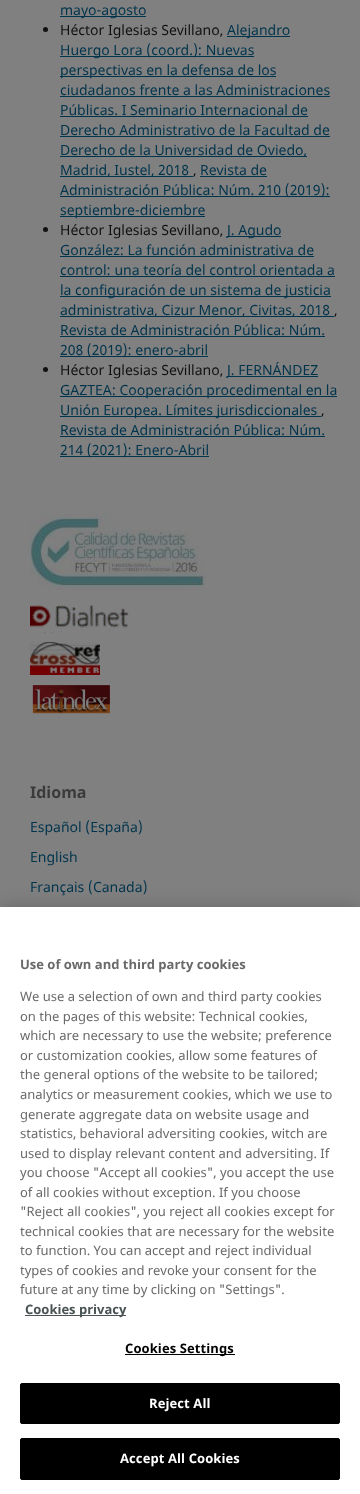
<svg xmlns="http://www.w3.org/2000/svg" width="360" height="1494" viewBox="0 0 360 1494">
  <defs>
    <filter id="blur1" x="-50%" y="-200%" width="200%" height="500%"><feGaussianBlur stdDeviation="9"/></filter>
  </defs>
  <rect width="100%" height="100%" fill="#808080"/>
  <rect x="60" y="16" width="86" height="1" fill="#00344c"/>
  <text x="60" y="15" font-family="Noto Sans" font-size="14" fill="#00344c">mayo-agosto</text>
  <circle cx="45.5" cy="29.5" r="2.5" fill="#111111"/>
  <text x="60" y="35" font-family="Noto Sans" font-size="14" fill="#111111">Héctor Iglesias Sevillano,</text>
  <rect x="227" y="36" width="63" height="1" fill="#00344c"/>
  <text x="227" y="35" font-family="Noto Sans" font-size="14" fill="#00344c">Alejandro</text>
  <rect x="60" y="56" width="194" height="1" fill="#00344c"/>
  <text x="60" y="55" font-family="Noto Sans" font-size="14" fill="#00344c">Huergo Lora (coord.): Nuevas</text>
  <rect x="60" y="76" width="216" height="1" fill="#00344c"/>
  <text x="60" y="75" font-family="Noto Sans" font-size="14" fill="#00344c">perspectivas en la defensa de los</text>
  <text x="60" y="95" font-family="Noto Sans" font-size="14" fill="#00344c">ciudadanos frente a las Administraciones</text>
  <rect x="60" y="96" width="270" height="1" fill="#00344c"/>
  <text x="60" y="115" font-family="Noto Sans" font-size="14" fill="#00344c">Públicas. I Seminario Internacional de</text>
  <rect x="60" y="116" width="248" height="1" fill="#00344c"/>
  <text x="60" y="135" font-family="Noto Sans" font-size="14" fill="#00344c">Derecho Administrativo de la Facultad de</text>
  <rect x="60" y="136" width="270" height="1" fill="#00344c"/>
  <rect x="60" y="156" width="247" height="1" fill="#00344c"/>
  <text x="60" y="155" font-family="Noto Sans" font-size="14" fill="#00344c">Derecho de la Universidad de Oviedo,</text>
  <rect x="60" y="176" width="133" height="1" fill="#00344c"/>
  <text x="60" y="175" font-family="Noto Sans" font-size="14" fill="#00344c">Madrid, Iustel, 2018</text>
  <text x="193" y="175" font-family="Noto Sans" font-size="14" fill="#111111">,</text>
  <text x="200" y="175" font-family="Noto Sans" font-size="14" fill="#00344c">Revista de</text>
  <rect x="200" y="176" width="67" height="1" fill="#00344c"/>
  <rect x="60" y="196" width="270" height="1" fill="#00344c"/>
  <text x="60" y="195" font-family="Noto Sans" font-size="14" fill="#00344c">Administración Pública: Núm. 210 (2019):</text>
  <rect x="60" y="216" width="145" height="1" fill="#00344c"/>
  <text x="60" y="215" font-family="Noto Sans" font-size="14" fill="#00344c">septiembre-diciembre</text>
  <circle cx="45.5" cy="229.5" r="2.5" fill="#111111"/>
  <text x="60" y="235" font-family="Noto Sans" font-size="14" fill="#111111">Héctor Iglesias Sevillano,</text>
  <rect x="227" y="236" width="54" height="1" fill="#00344c"/>
  <text x="227" y="235" font-family="Noto Sans" font-size="14" fill="#00344c">J. Agudo</text>
  <text x="60" y="255" font-family="Noto Sans" font-size="14" fill="#00344c">González: La función administrativa de</text>
  <rect x="60" y="256" width="254" height="1" fill="#00344c"/>
  <text x="60" y="275" font-family="Noto Sans" font-size="14" fill="#00344c">control: una teoría del control orientada a</text>
  <rect x="60" y="276" width="275" height="1" fill="#00344c"/>
  <rect x="60" y="296" width="271" height="1" fill="#00344c"/>
  <text x="60" y="295" font-family="Noto Sans" font-size="14" fill="#00344c">la configuración de un sistema de justicia</text>
  <rect x="60" y="316" width="274" height="1" fill="#00344c"/>
  <text x="60" y="315" font-family="Noto Sans" font-size="14" fill="#00344c">administrativa, Cizur Menor, Civitas, 2018</text>
  <text x="334" y="315" font-family="Noto Sans" font-size="14" fill="#111111">,</text>
  <text x="60" y="335" font-family="Noto Sans" font-size="14" fill="#00344c">Revista de Administración Pública: Núm.</text>
  <rect x="60" y="336" width="265" height="1" fill="#00344c"/>
  <rect x="60" y="356" width="148" height="1" fill="#00344c"/>
  <text x="60" y="355" font-family="Noto Sans" font-size="14" fill="#00344c">208 (2019): enero-abril</text>
  <circle cx="45.5" cy="369.5" r="2.5" fill="#111111"/>
  <text x="60" y="375" font-family="Noto Sans" font-size="14" fill="#111111">Héctor Iglesias Sevillano,</text>
  <rect x="227" y="376" width="91" height="1" fill="#00344c"/>
  <text x="227" y="375" font-family="Noto Sans" font-size="14" fill="#00344c">J. FERNÁNDEZ</text>
  <rect x="60" y="396" width="277" height="1" fill="#00344c"/>
  <text x="60" y="395" font-family="Noto Sans" font-size="14" fill="#00344c">GAZTEA: Cooperación procedimental en la</text>
  <rect x="60" y="416" width="261" height="1" fill="#00344c"/>
  <text x="60" y="415" font-family="Noto Sans" font-size="14" fill="#00344c">Unión Europea. Límites jurisdiccionales</text>
  <text x="321" y="415" font-family="Noto Sans" font-size="14" fill="#111111">,</text>
  <text x="60" y="435" font-family="Noto Sans" font-size="14" fill="#00344c">Revista de Administración Pública: Núm.</text>
  <rect x="60" y="436" width="265" height="1" fill="#00344c"/>
  <rect x="60" y="456" width="149" height="1" fill="#00344c"/>
  <text x="60" y="455" font-family="Noto Sans" font-size="14" fill="#00344c">214 (2021): Enero-Abril</text>
  <image x="30" y="514" width="176" height="76" href="img1.png"/>
  <image x="30" y="605" width="99" height="28" href="img2.png"/>
  <image x="30" y="642" width="70" height="33" href="img3.png"/>
  <image x="32" y="685" width="78" height="29" href="img4.png"/>
  <text x="30" y="798" font-family="Noto Sans" font-size="16" font-weight="bold" fill="#3b3b3b">Idioma</text>
  <text x="30" y="832" font-family="Noto Sans" font-size="14" fill="#00344c">Español (España)</text>
  <text x="30" y="862" font-family="Noto Sans" font-size="14" fill="#00344c">English</text>
  <text x="30" y="892" font-family="Noto Sans" font-size="14" fill="#00344c">Français (Canada)</text>
  <rect x="0" y="907" width="360" height="587" fill="#000000" fill-opacity="0.2" filter="url(#blur1)"/>
  <rect x="0" y="907" width="360" height="587" fill="#ffffff"/>
  <text x="20" y="969" font-family="Noto Sans" font-size="13" font-weight="bold" fill="#696969">Use of own and third party cookies</text>
  <text x="20" y="1001" font-family="Noto Sans" font-size="13" fill="#696969">We use a selection of own and third party cookies</text>
  <text x="20" y="1021" font-family="Noto Sans" font-size="13" fill="#696969">on the pages of this website: Technical cookies,</text>
  <text x="20" y="1040" font-family="Noto Sans" font-size="13" fill="#696969">which are necessary to use the website; preference</text>
  <text x="20" y="1060" font-family="Noto Sans" font-size="13" fill="#696969">or customization cookies, allow some features of</text>
  <text x="20" y="1079" font-family="Noto Sans" font-size="13" fill="#696969">the general options of the website to be tailored;</text>
  <text x="20" y="1099" font-family="Noto Sans" font-size="13" fill="#696969">analytics or measurement cookies, which we use to</text>
  <text x="20" y="1119" font-family="Noto Sans" font-size="13" fill="#696969">generate aggregate data on website usage and</text>
  <text x="20" y="1138" font-family="Noto Sans" font-size="13" fill="#696969">statistics, behavioral adversiting cookies, witch are</text>
  <text x="20" y="1158" font-family="Noto Sans" font-size="13" fill="#696969">used to display relevant content and adversiting. If</text>
  <text x="20" y="1177" font-family="Noto Sans" font-size="13" fill="#696969">you choose "Accept all cookies", you accept the use</text>
  <text x="20" y="1197" font-family="Noto Sans" font-size="13" fill="#696969">of all cookies without exception. If you choose</text>
  <text x="20" y="1216" font-family="Noto Sans" font-size="13" fill="#696969">"Reject all cookies", you reject all cookies except for</text>
  <text x="20" y="1236" font-family="Noto Sans" font-size="13" fill="#696969">technical cookies that are necessary for the website</text>
  <text x="20" y="1255" font-family="Noto Sans" font-size="13" fill="#696969">to function. You can accept and reject individual</text>
  <text x="20" y="1275" font-family="Noto Sans" font-size="13" fill="#696969">types of cookies and revoke your consent for the</text>
  <text x="20" y="1294" font-family="Noto Sans" font-size="13" fill="#696969">future at any time by clicking on "Settings".</text>
  <rect x="25" y="1315" width="101" height="1" fill="#4a5354"/>
  <text x="25" y="1314" font-family="Noto Sans" font-size="13" font-weight="bold" fill="#4a5354">Cookies privacy</text>
  <rect x="125" y="1354" width="110" height="1" fill="#000000"/>
  <text x="125" y="1353" font-family="Noto Sans" font-size="13" font-weight="bold" letter-spacing="0.1" fill="#000000">Cookies Settings</text>
  <rect x="20.5" y="1383.5" width="319" height="40" rx="1.5" fill="#000000" stroke="#000000"/>
  <text x="149" y="1408" font-family="Noto Sans" font-size="13" font-weight="bold" letter-spacing="0.1" fill="#ffffff">Reject All</text>
  <rect x="20.5" y="1438.5" width="319" height="41" rx="1.5" fill="#000000" stroke="#000000"/>
  <text x="120" y="1463" font-family="Noto Sans" font-size="13" font-weight="bold" letter-spacing="0.1" fill="#ffffff">Accept All Cookies</text>
</svg>
